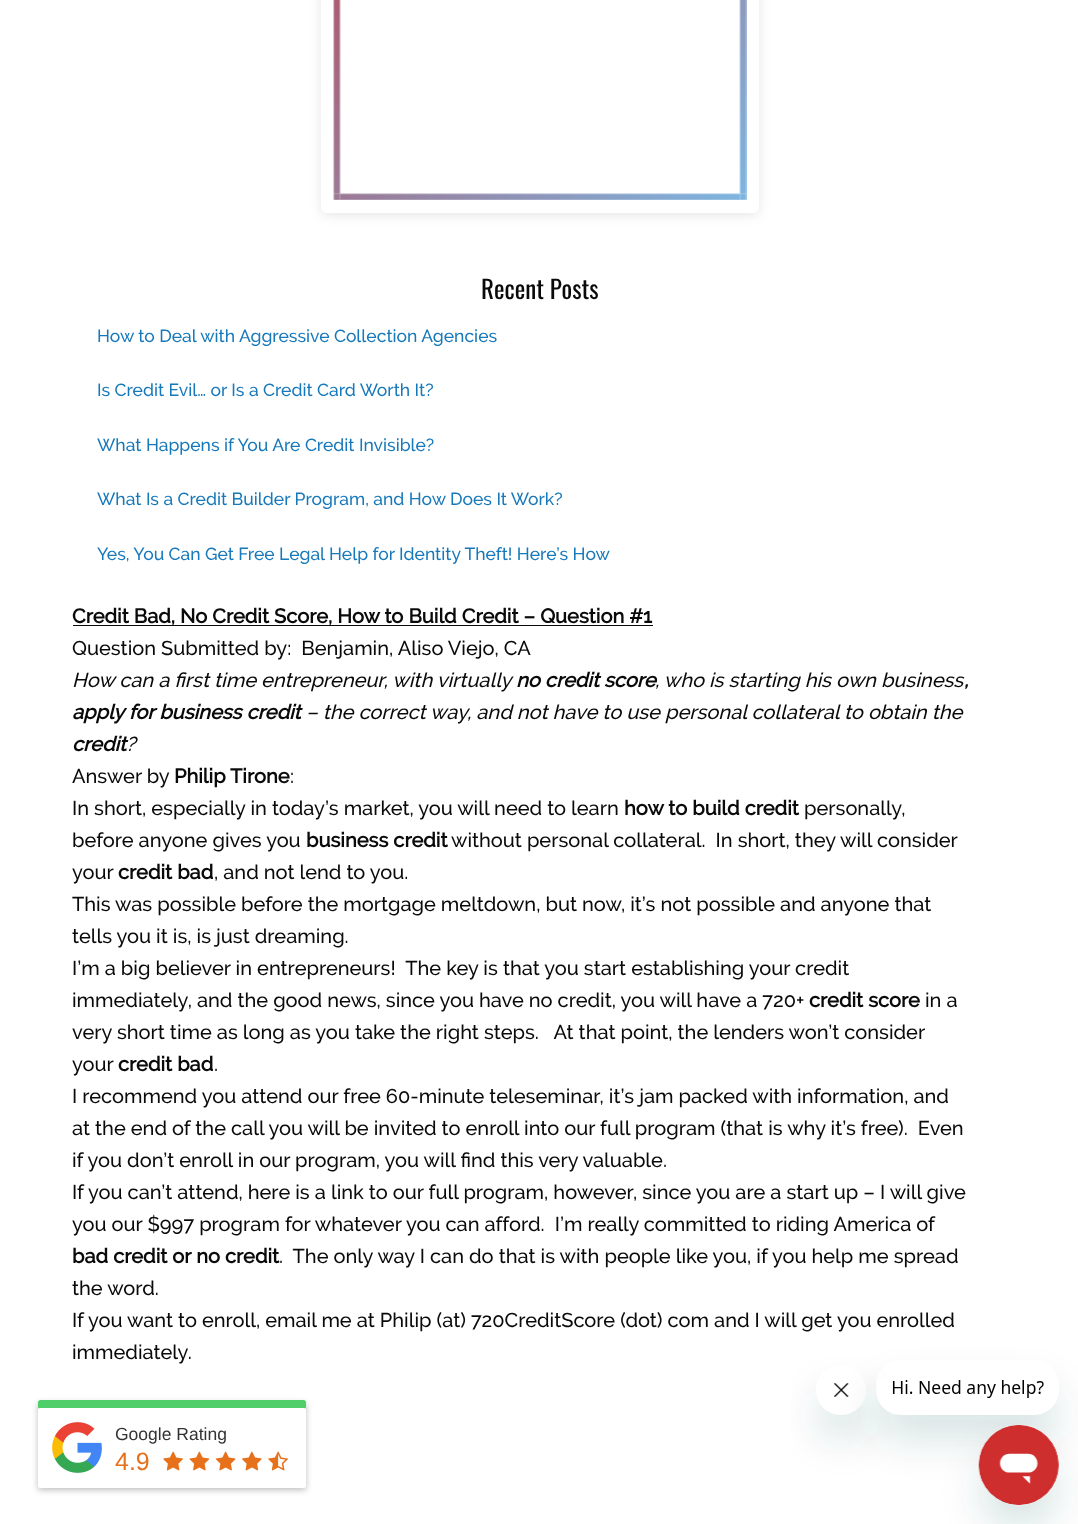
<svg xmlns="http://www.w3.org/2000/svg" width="1078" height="1524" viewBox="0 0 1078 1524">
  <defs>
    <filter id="blur1" x="-50%" y="-200%" width="200%" height="500%"><feGaussianBlur stdDeviation="6"/></filter>
    <filter id="blur2" x="-50%" y="-200%" width="200%" height="500%"><feGaussianBlur stdDeviation="3"/></filter>
    <clipPath id="clip1"><path d="M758 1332H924V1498H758ZM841 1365C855 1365 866 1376 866 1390C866 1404 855 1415 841 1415C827 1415 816 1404 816 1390C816 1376 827 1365 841 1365Z" clip-rule="evenodd"/></clipPath>
    <filter id="blur3" x="-50%" y="-200%" width="200%" height="500%"><feGaussianBlur stdDeviation="19"/></filter>
    <clipPath id="clip2"><path d="M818 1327H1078V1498H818ZM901 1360H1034C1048 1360 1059 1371 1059 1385V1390C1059 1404 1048 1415 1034 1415H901C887 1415 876 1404 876 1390V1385C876 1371 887 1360 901 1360Z" clip-rule="evenodd"/></clipPath>
  </defs>
  <rect width="100%" height="100%" fill="#ffffff"/>
  <rect x="321" y="-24" width="438" height="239" rx="6" fill="#000000" fill-opacity="0.1" filter="url(#blur1)"/>
  <rect x="321" y="-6" width="438" height="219" rx="6" fill="#ffffff"/>
  <image x="333" y="0" width="414" height="200" href="img1.png"/>
  <text x="481" y="299" font-family="Oswald" font-size="25" fill="#0a0a0a">Recent Posts</text>
  <text x="97" y="342" font-family="Raleway" font-size="17.5" font-weight="500" fill="#1779ba">How to Deal with Aggressive Collection Agencies</text>
  <text x="97" y="396" font-family="Raleway" font-size="17.5" font-weight="500" fill="#1779ba">Is Credit Evil… or Is a Credit Card Worth It?</text>
  <text x="97" y="451" font-family="Raleway" font-size="17.5" font-weight="500" fill="#1779ba">What Happens if You Are Credit Invisible?</text>
  <text x="97" y="505" font-family="Raleway" font-size="17.5" font-weight="500" fill="#1779ba">What Is a Credit Builder Program, and How Does It Work?</text>
  <text x="97" y="560" font-family="Raleway" font-size="17.5" font-weight="500" fill="#1779ba">Yes, You Can Get Free Legal Help for Identity Theft! Here’s How</text>
  <text x="72" y="623" font-family="Raleway" font-size="20" font-weight="bold" fill="#0a0a0a">Credit Bad, No Credit Score, How to Build Credit – Question #1</text>
  <rect x="73" y="625" width="580" height="1" fill="#0a0a0a"/>
  <text x="72" y="655" font-family="Raleway" font-size="20" font-weight="500" fill="#0a0a0a" xml:space="preserve">Question Submitted by:  Benjamin, Aliso Viejo, CA</text>
  <text x="72" y="687" font-family="Raleway" font-size="20" font-weight="500" font-style="italic" fill="#0a0a0a">How can a first time entrepreneur, with virtually</text>
  <text x="516" y="687" font-family="Raleway" font-size="20" font-weight="bold" font-style="italic" fill="#0a0a0a">no credit score</text>
  <text x="655" y="687" font-family="Raleway" font-size="20" font-weight="500" font-style="italic" fill="#0a0a0a">, who is starting his own business</text>
  <text x="964" y="687" font-family="Raleway" font-size="20" font-weight="bold" font-style="italic" fill="#0a0a0a">,</text>
  <text x="72" y="719" font-family="Raleway" font-size="20" font-weight="bold" font-style="italic" fill="#0a0a0a">apply for business credit</text>
  <text x="306" y="719" font-family="Raleway" font-size="20" font-weight="500" font-style="italic" fill="#0a0a0a">– the correct way, and not have to use personal collateral to obtain the</text>
  <text x="72" y="751" font-family="Raleway" font-size="20" font-weight="bold" font-style="italic" fill="#0a0a0a">credit</text>
  <text x="126" y="751" font-family="Raleway" font-size="20" font-weight="500" font-style="italic" fill="#0a0a0a">?</text>
  <text x="72" y="783" font-family="Raleway" font-size="20" font-weight="500" fill="#0a0a0a">Answer by</text>
  <text x="174" y="783" font-family="Raleway" font-size="20" font-weight="bold" fill="#0a0a0a">Philip Tirone</text>
  <text x="290" y="783" font-family="Raleway" font-size="20" font-weight="500" fill="#0a0a0a">:</text>
  <text x="72" y="815" font-family="Raleway" font-size="20" font-weight="500" fill="#0a0a0a">In short, especially in today’s market, you will need to learn</text>
  <text x="624" y="815" font-family="Raleway" font-size="20" font-weight="bold" fill="#0a0a0a">how to build credit</text>
  <text x="804" y="815" font-family="Raleway" font-size="20" font-weight="500" fill="#0a0a0a">personally,</text>
  <text x="72" y="847" font-family="Raleway" font-size="20" font-weight="500" fill="#0a0a0a">before anyone gives you</text>
  <text x="306" y="847" font-family="Raleway" font-size="20" font-weight="bold" fill="#0a0a0a">business credit</text>
  <text x="451" y="847" font-family="Raleway" font-size="20" font-weight="500" fill="#0a0a0a" xml:space="preserve">without personal collateral.  In short, they will consider</text>
  <text x="72" y="879" font-family="Raleway" font-size="20" font-weight="500" fill="#0a0a0a">your</text>
  <text x="118" y="879" font-family="Raleway" font-size="20" font-weight="bold" fill="#0a0a0a">credit bad</text>
  <text x="214" y="879" font-family="Raleway" font-size="20" font-weight="500" fill="#0a0a0a">, and not lend to you.</text>
  <text x="72" y="911" font-family="Raleway" font-size="20" font-weight="500" fill="#0a0a0a">This was possible before the mortgage meltdown, but now, it’s not possible and anyone that</text>
  <text x="72" y="943" font-family="Raleway" font-size="20" font-weight="500" fill="#0a0a0a">tells you it is, is just dreaming.</text>
  <text x="72" y="975" font-family="Raleway" font-size="20" font-weight="500" fill="#0a0a0a" xml:space="preserve">I’m a big believer in entrepreneurs!  The key is that you start establishing your credit</text>
  <text x="72" y="1007" font-family="Raleway" font-size="20" font-weight="500" fill="#0a0a0a">immediately, and the good news, since you have no credit, you will have a 720+</text>
  <text x="809" y="1007" font-family="Raleway" font-size="20" font-weight="bold" fill="#0a0a0a">credit score</text>
  <text x="925" y="1007" font-family="Raleway" font-size="20" font-weight="500" fill="#0a0a0a">in a</text>
  <text x="72" y="1039" font-family="Raleway" font-size="20" font-weight="500" fill="#0a0a0a" xml:space="preserve">very short time as long as you take the right steps.   At that point, the lenders won’t consider</text>
  <text x="72" y="1071" font-family="Raleway" font-size="20" font-weight="500" fill="#0a0a0a">your</text>
  <text x="118" y="1071" font-family="Raleway" font-size="20" font-weight="bold" fill="#0a0a0a">credit bad</text>
  <text x="214" y="1071" font-family="Raleway" font-size="20" font-weight="500" fill="#0a0a0a">.</text>
  <text x="72" y="1103" font-family="Raleway" font-size="20" font-weight="500" fill="#0a0a0a">I recommend you attend our free 60-minute teleseminar, it’s jam packed with information, and</text>
  <text x="72" y="1135" font-family="Raleway" font-size="20" font-weight="500" fill="#0a0a0a" xml:space="preserve">at the end of the call you will be invited to enroll into our full program (that is why it’s free).  Even</text>
  <text x="72" y="1167" font-family="Raleway" font-size="20" font-weight="500" fill="#0a0a0a">if you don’t enroll in our program, you will find this very valuable.</text>
  <text x="72" y="1199" font-family="Raleway" font-size="20" font-weight="500" fill="#0a0a0a">If you can’t attend, here is a link to our full program, however, since you are a start up – I will give</text>
  <text x="72" y="1231" font-family="Raleway" font-size="20" font-weight="500" fill="#0a0a0a" xml:space="preserve">you our $997 program for whatever you can afford.  I’m really committed to riding America of</text>
  <text x="72" y="1263" font-family="Raleway" font-size="20" font-weight="bold" fill="#0a0a0a">bad credit or no credit</text>
  <text x="279" y="1263" font-family="Raleway" font-size="20" font-weight="500" fill="#0a0a0a" xml:space="preserve">.  The only way I can do that is with people like you, if you help me spread</text>
  <text x="72" y="1295" font-family="Raleway" font-size="20" font-weight="500" fill="#0a0a0a">the word.</text>
  <text x="72" y="1327" font-family="Raleway" font-size="20" font-weight="500" fill="#0a0a0a">If you want to enroll, email me at Philip (at) 720CreditScore (dot) com and I will get you enrolled</text>
  <text x="72" y="1359" font-family="Raleway" font-size="20" font-weight="500" fill="#0a0a0a">immediately.</text>
  <rect x="38" y="1403" width="268" height="87" fill="#000000" fill-opacity="0.26" filter="url(#blur2)"/>
  <path d="M40.5 1400H303.5C305 1400 306 1401 306 1402.5V1408H38V1402.5C38 1401 39 1400 40.5 1400Z" fill="#4fce6a"/>
  <rect x="38" y="1408" width="268" height="80" rx="2.5" fill="#ffffff"/>
  <image x="52" y="1422" width="50" height="51" href="img2.png"/>
  <text x="115" y="1440" font-family="Liberation Sans" font-size="17.5" fill="#333333">Google Rating</text>
  <text x="115" y="1470" font-family="Liberation Sans" font-size="25" fill="#e7711b">4.9</text>
  <image x="163" y="1451" width="20" height="20" href="img3.png"/>
  <image x="189" y="1451" width="21" height="20" href="img4.png"/>
  <image x="215" y="1451" width="21" height="20" href="img5.png"/>
  <image x="242" y="1451" width="20" height="20" href="img6.png"/>
  <image x="268" y="1451" width="20" height="20" href="img7.png"/>
  <g clip-path="url(#clip1)">
    <rect x="816" y="1390" width="50" height="50" rx="25" fill="#17494d" fill-opacity="0.15" filter="url(#blur3)"/>
  </g>
  <image x="834" y="1383" width="15" height="14" href="img9.png"/>
  <g clip-path="url(#clip2)">
    <rect x="876" y="1385" width="183" height="55" rx="25" fill="#17494d" fill-opacity="0.15" filter="url(#blur3)"/>
  </g>
  <image x="877" y="1380" width="167" height="31" href="img8.png"/>
  <rect x="979" y="1450" width="80" height="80" rx="40" fill="#17494d" fill-opacity="0.15" filter="url(#blur3)"/>
  <image x="978" y="1425" width="81" height="80" href="img10.png"/>
</svg>
